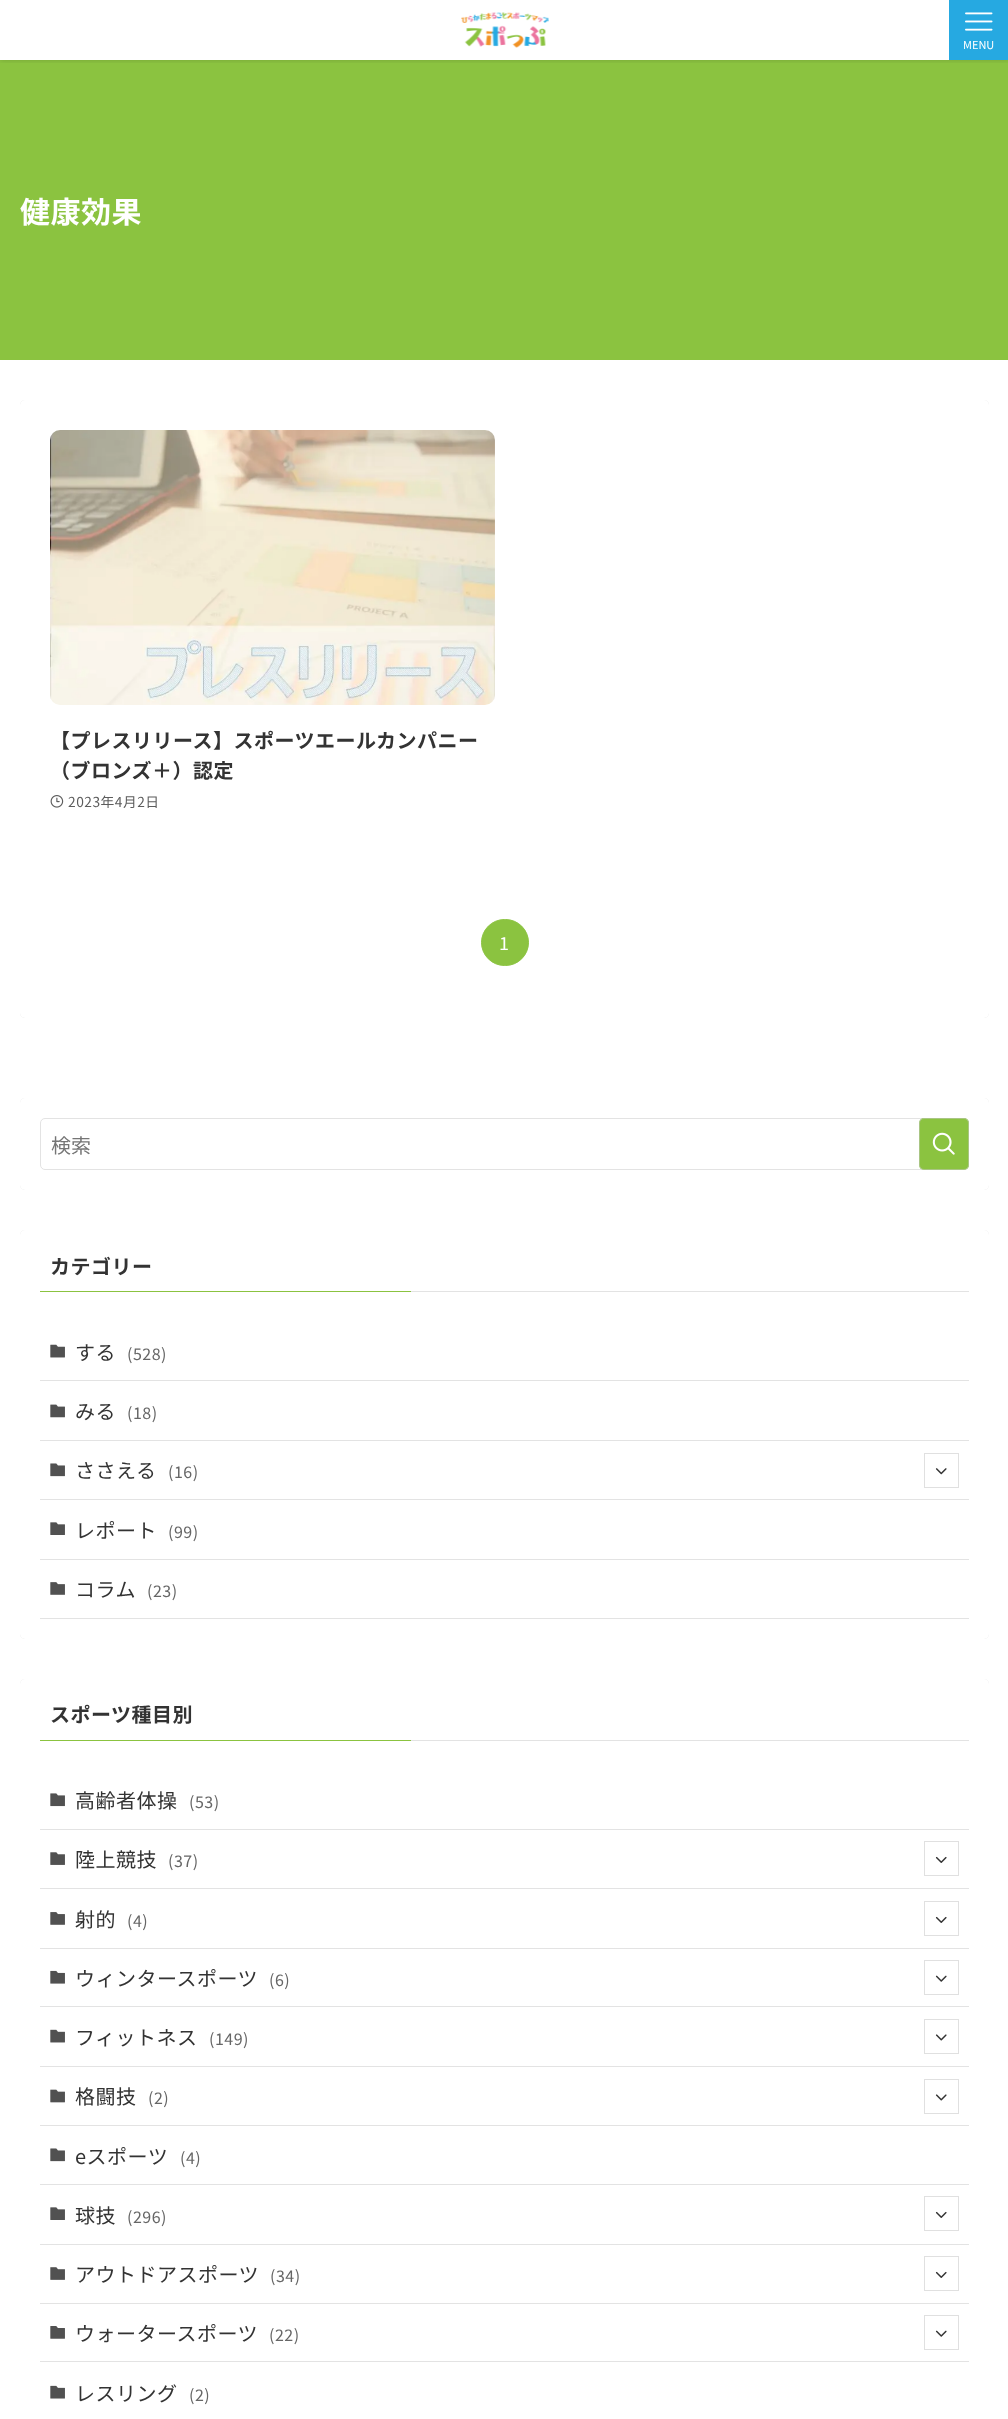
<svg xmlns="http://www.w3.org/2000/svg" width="1008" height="2419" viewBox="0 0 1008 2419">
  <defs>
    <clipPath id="clip1"><rect x="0" y="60" width="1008" height="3"/></clipPath>
    <filter id="blur1" x="-50%" y="-200%" width="200%" height="500%"><feGaussianBlur stdDeviation="2.5"/></filter>
    <filter id="blur2" x="-50%" y="-200%" width="200%" height="500%"><feGaussianBlur stdDeviation="0.5"/></filter>
  </defs>
  <rect width="100%" height="100%" fill="#ffffff"/>
  <rect x="0" y="60" width="1008" height="300" fill="#8bc340"/>
  <g clip-path="url(#clip1)">
    <rect x="0" y="1" width="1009" height="60" fill="#000000" fill-opacity="0.12" filter="url(#blur1)"/>
  </g>
  <image x="461" y="12" width="88" height="36" href="img1.png"/>
  <rect x="949" y="0" width="59" height="60" fill="#26a9e1"/>
  <image x="965" y="12" width="28" height="19" href="img2.png"/>
  <text x="963" y="49" font-family="Noto Sans JP" font-size="11" fill="#ffffff">MENU</text>
  <text x="20" y="223" font-family="Noto Sans JP" font-size="30" font-weight="bold" letter-spacing="0.5" fill="#ffffff">健康効果</text>
  <rect x="20" y="400" width="969" height="618" rx="5" fill="#000000" fill-opacity="0.12" filter="url(#blur2)"/>
  <rect x="20" y="400" width="969" height="618" rx="5" fill="#ffffff"/>
  <image x="50" y="430" width="445" height="275" href="img3.png"/>
  <text x="50" y="748" font-family="Noto Sans JP" font-size="20" font-weight="bold" letter-spacing="0.5" fill="#333333">【プレスリリース】スポーツエールカンパニー</text>
  <text x="50" y="778" font-family="Noto Sans JP" font-size="20" font-weight="bold" letter-spacing="0.5" fill="#333333">（ブロンズ＋）認定</text>
  <image x="50" y="795" width="14" height="13" href="img4.png"/>
  <text x="68" y="807" font-family="Noto Sans JP" font-size="13.75" letter-spacing="0.5" fill="#5c5c5c">2023年4月2日</text>
  <rect x="481.5" y="919.5" width="47" height="46" rx="23" fill="#8bc340" stroke="#8bc340"/>
  <text x="499" y="950" font-family="Noto Sans JP" font-size="18" letter-spacing="0.5" fill="#ffffff">1</text>
  <rect x="20" y="1098" width="969" height="92" rx="5" fill="#000000" fill-opacity="0.12" filter="url(#blur2)"/>
  <rect x="20" y="1098" width="969" height="92" rx="5" fill="#ffffff"/>
  <rect x="40.5" y="1118.5" width="928" height="51" rx="4.5" fill="none" stroke="#e3e3e3"/>
  <text x="51" y="1153" font-family="Noto Sans JP" font-size="20" fill="#757575">検索</text>
  <rect x="919" y="1118" width="50" height="52" rx="5" fill="#8bc340"/>
  <rect x="919.5" y="1118.5" width="49" height="51" rx="4.5" fill="none" stroke="#c7c7c7" stroke-opacity="0.5"/>
  <image x="932" y="1132" width="23" height="23" href="img5.png"/>
  <rect x="20" y="1230" width="969" height="409" rx="5" fill="#000000" fill-opacity="0.12" filter="url(#blur2)"/>
  <rect x="20" y="1230" width="969" height="409" rx="5" fill="#ffffff"/>
  <text x="50" y="1274" font-family="Noto Sans JP" font-size="20" font-weight="bold" letter-spacing="0.5" fill="#333333">カテゴリー</text>
  <rect x="40" y="1291" width="371" height="1" fill="#8bc340"/>
  <rect x="411" y="1291" width="558" height="1" fill="#e3e3e3"/>
  <rect x="40" y="1380" width="929" height="1" fill="#e3e3e3"/>
  <image x="50" y="1344" width="15" height="14" href="img6.png"/>
  <text x="75" y="1360" font-family="Noto Sans JP" font-size="20" letter-spacing="0.5" fill="#333333">する</text>
  <text x="127" y="1360" font-family="Noto Sans JP" font-size="16" letter-spacing="0.5" fill="#666666">(528)</text>
  <rect x="40" y="1440" width="929" height="1" fill="#e3e3e3"/>
  <image x="50" y="1404" width="15" height="14" href="img7.png"/>
  <text x="75" y="1419" font-family="Noto Sans JP" font-size="20" letter-spacing="0.5" fill="#333333">みる</text>
  <text x="127" y="1419" font-family="Noto Sans JP" font-size="16" letter-spacing="0.5" fill="#666666">(18)</text>
  <rect x="40" y="1499" width="929" height="1" fill="#e3e3e3"/>
  <image x="50" y="1463" width="15" height="14" href="img8.png"/>
  <text x="75" y="1478" font-family="Noto Sans JP" font-size="20" letter-spacing="0.5" fill="#333333">ささえる</text>
  <text x="168" y="1478" font-family="Noto Sans JP" font-size="16" letter-spacing="0.5" fill="#666666">(16)</text>
  <image x="935" y="1468" width="12" height="7" href="img9.png"/>
  <rect x="924.5" y="1453.5" width="34" height="34" fill="none" stroke="#e0e0e0"/>
  <rect x="40" y="1559" width="929" height="1" fill="#e3e3e3"/>
  <image x="50" y="1522" width="15" height="13" href="img10.png"/>
  <text x="75" y="1538" font-family="Noto Sans JP" font-size="20" letter-spacing="0.5" fill="#333333">レポート</text>
  <text x="168" y="1538" font-family="Noto Sans JP" font-size="16" letter-spacing="0.5" fill="#666666">(99)</text>
  <rect x="40" y="1618" width="929" height="1" fill="#e3e3e3"/>
  <image x="50" y="1582" width="15" height="13" href="img11.png"/>
  <text x="75" y="1597" font-family="Noto Sans JP" font-size="20" letter-spacing="0.5" fill="#333333">コラム</text>
  <text x="147" y="1597" font-family="Noto Sans JP" font-size="16" letter-spacing="0.5" fill="#666666">(23)</text>
  <rect x="20" y="1679" width="969" height="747" rx="5" fill="#000000" fill-opacity="0.12" filter="url(#blur2)"/>
  <rect x="20" y="1679" width="969" height="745" rx="5" fill="#ffffff"/>
  <text x="50" y="1722" font-family="Noto Sans JP" font-size="20" font-weight="bold" letter-spacing="0.5" fill="#333333">スポーツ種目別</text>
  <rect x="40" y="1740" width="371" height="1" fill="#8bc340"/>
  <rect x="411" y="1740" width="558" height="1" fill="#e3e3e3"/>
  <rect x="40" y="1829" width="929" height="1" fill="#e3e3e3"/>
  <image x="50" y="1793" width="15" height="14" href="img12.png"/>
  <text x="75" y="1808" font-family="Noto Sans JP" font-size="20" letter-spacing="0.5" fill="#333333">高齢者体操</text>
  <text x="189" y="1808" font-family="Noto Sans JP" font-size="16" letter-spacing="0.5" fill="#666666">(53)</text>
  <rect x="40" y="1888" width="929" height="1" fill="#e3e3e3"/>
  <image x="50" y="1852" width="15" height="13" href="img13.png"/>
  <text x="75" y="1867" font-family="Noto Sans JP" font-size="20" letter-spacing="0.5" fill="#333333">陸上競技</text>
  <text x="168" y="1867" font-family="Noto Sans JP" font-size="16" letter-spacing="0.5" fill="#666666">(37)</text>
  <image x="935" y="1856" width="12" height="7" href="img14.png"/>
  <rect x="924.5" y="1841.5" width="34" height="34" fill="none" stroke="#e0e0e0"/>
  <rect x="40" y="1948" width="929" height="1" fill="#e3e3e3"/>
  <image x="50" y="1912" width="15" height="13" href="img15.png"/>
  <text x="75" y="1927" font-family="Noto Sans JP" font-size="20" letter-spacing="0.5" fill="#333333">射的</text>
  <text x="127" y="1927" font-family="Noto Sans JP" font-size="16" letter-spacing="0.5" fill="#666666">(4)</text>
  <image x="935" y="1916" width="12" height="7" href="img14.png"/>
  <rect x="924.5" y="1901.5" width="34" height="34" fill="none" stroke="#e0e0e0"/>
  <rect x="40" y="2006" width="929" height="1" fill="#e3e3e3"/>
  <image x="50" y="1970" width="15" height="14" href="img16.png"/>
  <text x="75" y="1986" font-family="Noto Sans JP" font-size="20" letter-spacing="0.5" fill="#333333">ウィンタースポーツ</text>
  <text x="269" y="1986" font-family="Noto Sans JP" font-size="16" letter-spacing="0.5" fill="#666666">(6)</text>
  <image x="935" y="1975" width="12" height="7" href="img17.png"/>
  <rect x="924.5" y="1960.5" width="34" height="34" fill="none" stroke="#e0e0e0"/>
  <rect x="40" y="2066" width="929" height="1" fill="#e3e3e3"/>
  <image x="50" y="2029" width="15" height="14" href="img18.png"/>
  <text x="75" y="2045" font-family="Noto Sans JP" font-size="20" letter-spacing="0.5" fill="#333333">フィットネス</text>
  <text x="209" y="2045" font-family="Noto Sans JP" font-size="16" letter-spacing="0.5" fill="#666666">(149)</text>
  <image x="935" y="2034" width="12" height="7" href="img19.png"/>
  <rect x="924.5" y="2019.5" width="34" height="34" fill="none" stroke="#e0e0e0"/>
  <rect x="40" y="2125" width="929" height="1" fill="#e3e3e3"/>
  <image x="50" y="2089" width="15" height="14" href="img20.png"/>
  <text x="75" y="2104" font-family="Noto Sans JP" font-size="20" letter-spacing="0.5" fill="#333333">格闘技</text>
  <text x="148" y="2104" font-family="Noto Sans JP" font-size="16" letter-spacing="0.5" fill="#666666">(2)</text>
  <image x="935" y="2094" width="12" height="7" href="img19.png"/>
  <rect x="924.5" y="2079.5" width="34" height="34" fill="none" stroke="#e0e0e0"/>
  <rect x="40" y="2184" width="929" height="1" fill="#e3e3e3"/>
  <image x="50" y="2148" width="15" height="14" href="img21.png"/>
  <text x="75" y="2164" font-family="Noto Sans JP" font-size="20" letter-spacing="0.5" fill="#333333">eスポーツ</text>
  <text x="180" y="2164" font-family="Noto Sans JP" font-size="16" letter-spacing="0.5" fill="#666666">(4)</text>
  <rect x="40" y="2244" width="929" height="1" fill="#e3e3e3"/>
  <image x="50" y="2207" width="15" height="13" href="img22.png"/>
  <text x="75" y="2223" font-family="Noto Sans JP" font-size="20" letter-spacing="0.5" fill="#333333">球技</text>
  <text x="127" y="2223" font-family="Noto Sans JP" font-size="16" letter-spacing="0.5" fill="#666666">(296)</text>
  <image x="935" y="2211" width="12" height="7" href="img14.png"/>
  <rect x="924.5" y="2196.5" width="34" height="34" fill="none" stroke="#e0e0e0"/>
  <rect x="40" y="2303" width="929" height="1" fill="#e3e3e3"/>
  <image x="50" y="2267" width="15" height="13" href="img23.png"/>
  <text x="75" y="2282" font-family="Noto Sans JP" font-size="20" letter-spacing="0.5" fill="#333333">アウトドアスポーツ</text>
  <text x="270" y="2282" font-family="Noto Sans JP" font-size="16" letter-spacing="0.5" fill="#666666">(34)</text>
  <image x="935" y="2271" width="12" height="7" href="img14.png"/>
  <rect x="924.5" y="2256.5" width="34" height="34" fill="none" stroke="#e0e0e0"/>
  <rect x="40" y="2361" width="929" height="1" fill="#e3e3e3"/>
  <image x="50" y="2326" width="15" height="13" href="img24.png"/>
  <text x="75" y="2341" font-family="Noto Sans JP" font-size="20" letter-spacing="0.5" fill="#333333">ウォータースポーツ</text>
  <text x="269" y="2341" font-family="Noto Sans JP" font-size="16" letter-spacing="0.5" fill="#666666">(22)</text>
  <image x="935" y="2330" width="12" height="7" href="img17.png"/>
  <rect x="924.5" y="2315.5" width="34" height="34" fill="none" stroke="#e0e0e0"/>
  <image x="50" y="2385" width="15" height="14" href="img25.png"/>
  <text x="75" y="2401" font-family="Noto Sans JP" font-size="20" letter-spacing="0.5" fill="#333333">レスリング</text>
  <text x="189" y="2401" font-family="Noto Sans JP" font-size="16" letter-spacing="0.5" fill="#666666">(2)</text>
</svg>
